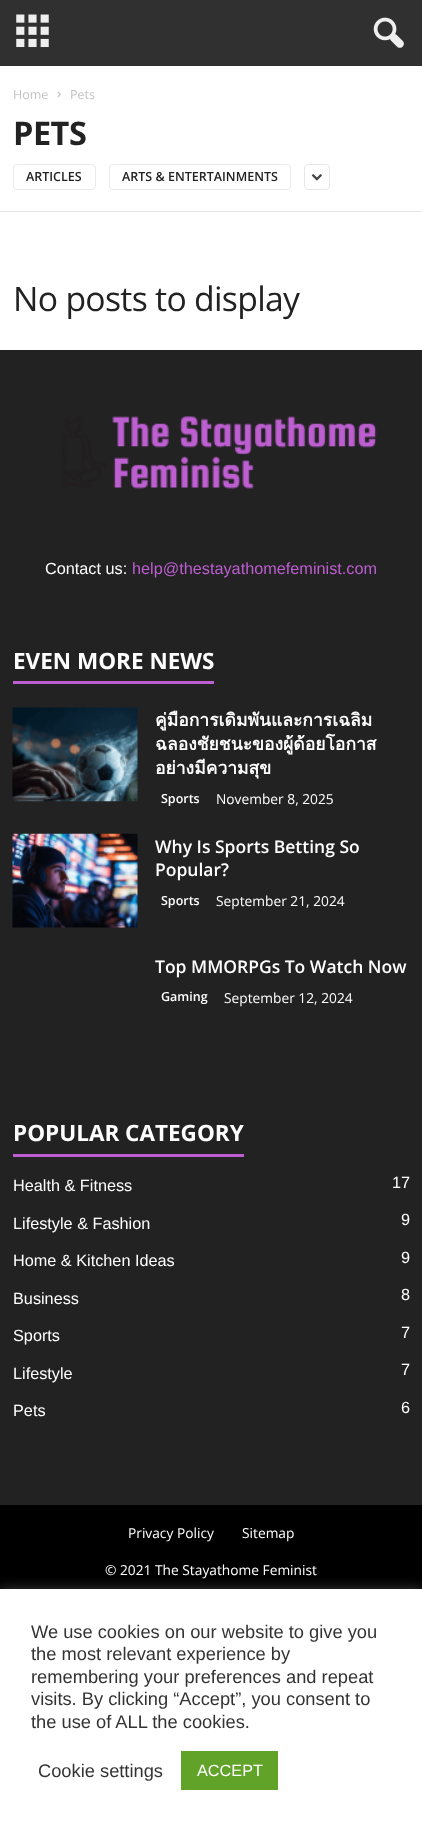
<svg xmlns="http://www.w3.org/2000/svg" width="422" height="1827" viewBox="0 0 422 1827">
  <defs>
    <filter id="blur1" x="-50%" y="-200%" width="200%" height="500%"><feGaussianBlur stdDeviation="6"/></filter>
  </defs>
  <rect width="100%" height="100%" fill="#222222"/>
  <rect x="0" y="0" width="422" height="66" fill="#303030"/>
  <image x="16" y="14" width="33" height="34" href="img1.png"/>
  <image x="373" y="17" width="31" height="31" href="img2.png"/>
  <rect x="0" y="66" width="422" height="145" fill="#ffffff"/>
  <text x="13" y="99" font-family="Open Sans" font-size="12.5" fill="#c3c3c3">Home</text>
  <image x="57" y="91" width="4" height="7" href="img3.png"/>
  <text x="70" y="99" font-family="Open Sans" font-size="12.5" fill="#c3c3c3">Pets</text>
  <text x="13" y="145" font-family="Open Sans" font-size="32.5" font-weight="bold" letter-spacing="-0.5" fill="#222222">PETS</text>
  <rect x="13.5" y="164.5" width="82" height="25" rx="3.5" fill="none" stroke="#eaeaea"/>
  <text x="26" y="181" font-family="Open Sans" font-size="12.5" font-weight="600" fill="#222222">ARTICLES</text>
  <rect x="109.5" y="164.5" width="181" height="25" rx="3.5" fill="none" stroke="#eaeaea"/>
  <text x="122" y="181" font-family="Open Sans" font-size="12.5" font-weight="600" fill="#222222">ARTS &amp; ENTERTAINMENTS</text>
  <rect x="304.5" y="164.5" width="25" height="25" rx="3.5" fill="none" stroke="#e6e6e6"/>
  <image x="311" y="174" width="11" height="7" href="img4.png"/>
  <rect x="0" y="212" width="422" height="138" fill="#ffffff"/>
  <rect x="0" y="211" width="422" height="1" fill="#e6e6e6"/>
  <text x="13" y="311" font-family="Open Sans" font-size="33.75" letter-spacing="-0.7" fill="#222222">No posts to display</text>
  <image x="62" y="416" width="315" height="73" href="img5.png"/>
  <text x="45" y="574" font-family="Liberation Sans" font-size="16.25" fill="#ffffff">Contact us:</text>
  <text x="132" y="574" font-family="Liberation Sans" font-size="16.25" fill="#bd5ed1">help@thestayathomefeminist.com</text>
  <text x="13" y="669" font-family="Open Sans" font-size="22.5" font-weight="bold" fill="#ffffff">EVEN MORE NEWS</text>
  <rect x="13" y="681" width="201" height="3" fill="#bd5ed1"/>
  <image x="12" y="707" width="126" height="95" href="img6.png"/>
  <text x="155" y="726" font-family="Loma" font-size="17.5" font-weight="bold" fill="#ffffff">คู่มือการเดิมพันและการเฉลิม</text>
  <text x="155" y="750" font-family="Loma" font-size="17.5" font-weight="bold" fill="#ffffff">ฉลองชัยชนะของผู้ด้อยโอกาส</text>
  <text x="155" y="774" font-family="Loma" font-size="17.5" font-weight="bold" fill="#ffffff">อย่างมีความสุข</text>
  <text x="161" y="803" font-family="Open Sans" font-size="12.5" font-weight="600" fill="#ffffff">Sports</text>
  <text x="216" y="804" font-family="Open Sans" font-size="13.75" fill="#ffffff">November 8, 2025</text>
  <image x="12" y="833" width="126" height="95" href="img7.png"/>
  <text x="155" y="853" font-family="Open Sans" font-size="17.5" font-weight="600" fill="#ffffff">Why Is Sports Betting So</text>
  <text x="155" y="876" font-family="Open Sans" font-size="17.5" font-weight="600" fill="#ffffff">Popular?</text>
  <text x="161" y="905" font-family="Open Sans" font-size="12.5" font-weight="600" fill="#ffffff">Sports</text>
  <text x="216" y="906" font-family="Open Sans" font-size="13.75" fill="#ffffff">September 21, 2024</text>
  <text x="155" y="973" font-family="Open Sans" font-size="17.5" font-weight="600" fill="#ffffff">Top MMORPGs To Watch Now</text>
  <text x="161" y="1001" font-family="Open Sans" font-size="12.5" font-weight="600" fill="#ffffff">Gaming</text>
  <text x="224" y="1003" font-family="Open Sans" font-size="13.75" fill="#ffffff">September 12, 2024</text>
  <text x="13" y="1141" font-family="Open Sans" font-size="22.5" font-weight="bold" fill="#ffffff">POPULAR CATEGORY</text>
  <rect x="13" y="1154" width="231" height="3" fill="#bd5ed1"/>
  <text x="13" y="1191" font-family="Liberation Sans" font-size="16.25" fill="#ffffff">Health &amp; Fitness</text>
  <text x="392" y="1188" font-family="Liberation Sans" font-size="16.25" fill="#ffffff">17</text>
  <text x="13" y="1229" font-family="Liberation Sans" font-size="16.25" fill="#ffffff">Lifestyle &amp; Fashion</text>
  <text x="401" y="1225" font-family="Liberation Sans" font-size="16.25" fill="#ffffff">9</text>
  <text x="13" y="1266" font-family="Liberation Sans" font-size="16.25" fill="#ffffff">Home &amp; Kitchen Ideas</text>
  <text x="401" y="1263" font-family="Liberation Sans" font-size="16.25" fill="#ffffff">9</text>
  <text x="13" y="1304" font-family="Liberation Sans" font-size="16.25" fill="#ffffff">Business</text>
  <text x="401" y="1300" font-family="Liberation Sans" font-size="16.25" fill="#ffffff">8</text>
  <text x="13" y="1341" font-family="Liberation Sans" font-size="16.25" fill="#ffffff">Sports</text>
  <text x="401" y="1338" font-family="Liberation Sans" font-size="16.25" fill="#ffffff">7</text>
  <text x="13" y="1379" font-family="Liberation Sans" font-size="16.25" fill="#ffffff">Lifestyle</text>
  <text x="401" y="1375" font-family="Liberation Sans" font-size="16.25" fill="#ffffff">7</text>
  <text x="13" y="1416" font-family="Liberation Sans" font-size="16.25" fill="#ffffff">Pets</text>
  <text x="401" y="1413" font-family="Liberation Sans" font-size="16.25" fill="#ffffff">6</text>
  <rect x="0" y="1505" width="422" height="84" fill="#000000"/>
  <text x="128" y="1538" font-family="Open Sans" font-size="13.75" fill="#ffffff">Privacy Policy</text>
  <text x="242" y="1538" font-family="Open Sans" font-size="13.75" fill="#ffffff">Sitemap</text>
  <text x="105" y="1575" font-family="Open Sans" font-size="13.75" fill="#ffffff">© 2021 The Stayathome Feminist</text>
  <rect x="0" y="1588" width="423" height="238" fill="#acabab" fill-opacity="0.3" filter="url(#blur1)"/>
  <rect x="0" y="1589" width="422" height="238" fill="#ffffff"/>
  <text x="31" y="1638" font-family="Liberation Sans" font-size="18.3" fill="#333333">We use cookies on our website to give you</text>
  <text x="31" y="1660" font-family="Liberation Sans" font-size="18.3" fill="#333333">the most relevant experience by</text>
  <text x="31" y="1683" font-family="Liberation Sans" font-size="18.3" fill="#333333">remembering your preferences and repeat</text>
  <text x="31" y="1705" font-family="Liberation Sans" font-size="18.3" fill="#333333">visits. By clicking “Accept”, you consent to</text>
  <text x="31" y="1728" font-family="Liberation Sans" font-size="18.3" fill="#333333">the use of ALL the cookies.</text>
  <text x="38" y="1777" font-family="Liberation Sans" font-size="18.3" fill="#333333">Cookie settings</text>
  <rect x="181" y="1751" width="97" height="39" fill="#61a229"/>
  <text x="197" y="1776" font-family="Liberation Sans" font-size="16.25" fill="#ffffff">ACCEPT</text>
</svg>
